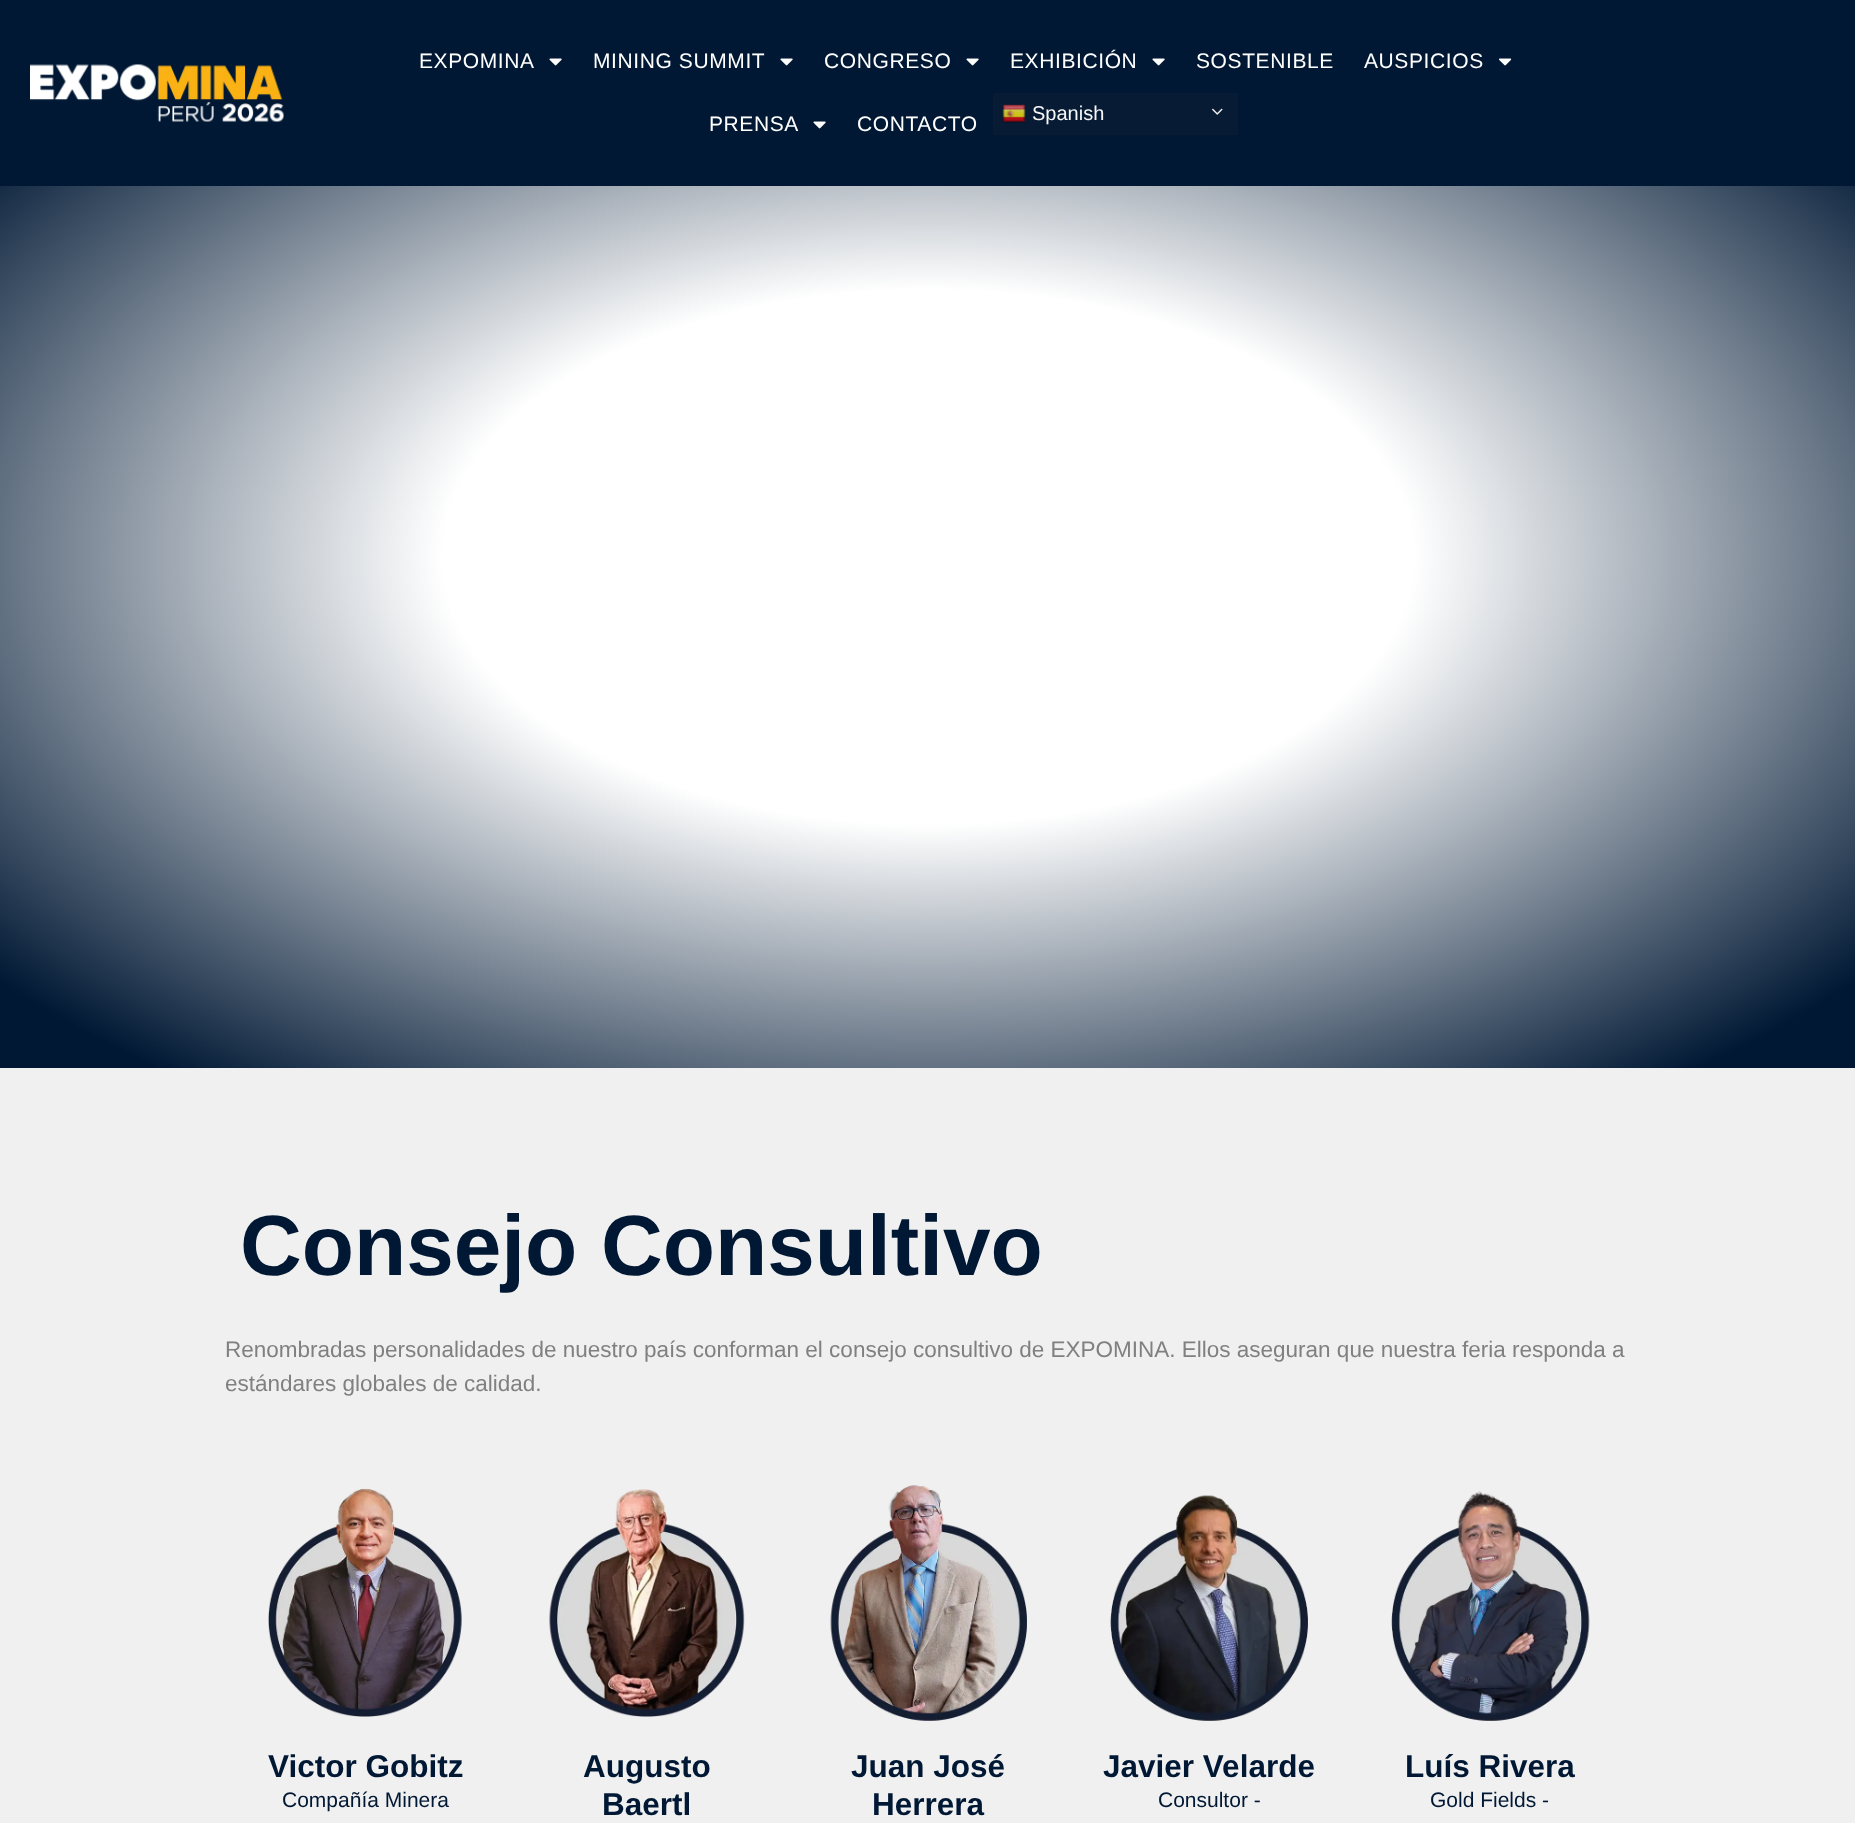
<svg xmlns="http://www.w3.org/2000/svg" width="1855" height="1823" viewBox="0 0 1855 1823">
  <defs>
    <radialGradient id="g1" gradientUnits="userSpaceOnUse" cx="0" cy="0" r="1" gradientTransform="matrix(1312 0 0 722 928 557)"><stop offset="0.37" stop-color="#ffffff"/><stop offset="0.92" stop-color="#001834"/></radialGradient>
  </defs>
  <rect width="100%" height="100%" fill="#ffffff"/>
  <rect x="0" y="0" width="1855" height="186" fill="#001834"/>
  <image x="30" y="64" width="254" height="58" href="img1.png"/>
  <text x="419" y="68" font-family="Liberation Sans" font-size="21" letter-spacing="0.6" fill="#ffffff">EXPOMINA</text>
  <image x="549" y="58" width="13" height="8" href="img2.png"/>
  <text x="593" y="68" font-family="Liberation Sans" font-size="21" letter-spacing="0.6" fill="#ffffff">MINING SUMMIT</text>
  <image x="780" y="58" width="13" height="8" href="img2.png"/>
  <text x="824" y="68" font-family="Liberation Sans" font-size="21" letter-spacing="0.6" fill="#ffffff">CONGRESO</text>
  <image x="966" y="58" width="13" height="8" href="img2.png"/>
  <text x="1010" y="68" font-family="Liberation Sans" font-size="21" letter-spacing="0.6" fill="#ffffff">EXHIBICIÓN</text>
  <image x="1152" y="58" width="13" height="8" href="img2.png"/>
  <text x="1196" y="68" font-family="Liberation Sans" font-size="21" letter-spacing="0.6" fill="#ffffff">SOSTENIBLE</text>
  <text x="1364" y="68" font-family="Liberation Sans" font-size="21" letter-spacing="0.6" fill="#ffffff">AUSPICIOS</text>
  <image x="1499" y="58" width="13" height="8" href="img3.png"/>
  <text x="709" y="131" font-family="Liberation Sans" font-size="21" letter-spacing="0.6" fill="#ffffff">PRENSA</text>
  <image x="813" y="121" width="13" height="8" href="img2.png"/>
  <text x="857" y="131" font-family="Liberation Sans" font-size="21" letter-spacing="0.6" fill="#ffffff">CONTACTO</text>
  <rect x="993" y="93" width="245" height="42" fill="#071b34"/>
  <image x="1002" y="104" width="24" height="19" href="img4.png"/>
  <text x="1032" y="120" font-family="Liberation Sans" font-size="20" fill="#f7f7f7">Spanish</text>
  <image x="1212" y="108" width="11" height="7" href="img5.png"/>
  <rect x="0" y="186" width="1855" height="882" fill="url(#g1)"/>
  <rect x="0" y="1068" width="1855" height="755" fill="#f0f0f0"/>
  <text x="240" y="1275" font-family="Liberation Sans" font-size="85.5" font-weight="bold" fill="#001834">Consejo Consultivo</text>
  <text x="225" y="1357" font-family="Liberation Sans" font-size="22.5" fill="#808080">Renombradas personalidades de nuestro país conforman el consejo consultivo de EXPOMINA. Ellos aseguran que nuestra feria responda a</text>
  <text x="225" y="1391" font-family="Liberation Sans" font-size="22.5" fill="#808080">estándares globales de calidad.</text>
  <image x="268" y="1488" width="194" height="229" href="img6.png"/>
  <text x="268" y="1777" font-family="Liberation Sans" font-size="31.5" font-weight="bold" fill="#001834">Victor Gobitz</text>
  <text x="282" y="1807" font-family="Liberation Sans" font-size="21" fill="#001834">Compañía Minera</text>
  <image x="549" y="1489" width="196" height="228" href="img7.png"/>
  <text x="583" y="1777" font-family="Liberation Sans" font-size="31.5" font-weight="bold" fill="#001834">Augusto</text>
  <text x="602" y="1815" font-family="Liberation Sans" font-size="31.5" font-weight="bold" fill="#001834">Baertl</text>
  <image x="830" y="1485" width="197" height="236" href="img8.png"/>
  <text x="851" y="1777" font-family="Liberation Sans" font-size="31.5" font-weight="bold" fill="#001834">Juan José</text>
  <text x="872" y="1815" font-family="Liberation Sans" font-size="31.5" font-weight="bold" fill="#001834">Herrera</text>
  <image x="1110" y="1495" width="198" height="226" href="img9.png"/>
  <text x="1103" y="1777" font-family="Liberation Sans" font-size="31.5" font-weight="bold" fill="#001834">Javier Velarde</text>
  <text x="1158" y="1807" font-family="Liberation Sans" font-size="21" fill="#001834">Consultor -</text>
  <image x="1391" y="1491" width="199" height="230" href="img10.png"/>
  <text x="1405" y="1777" font-family="Liberation Sans" font-size="31.5" font-weight="bold" fill="#001834">Luís Rivera</text>
  <text x="1430" y="1807" font-family="Liberation Sans" font-size="21" fill="#001834">Gold Fields -</text>
</svg>
